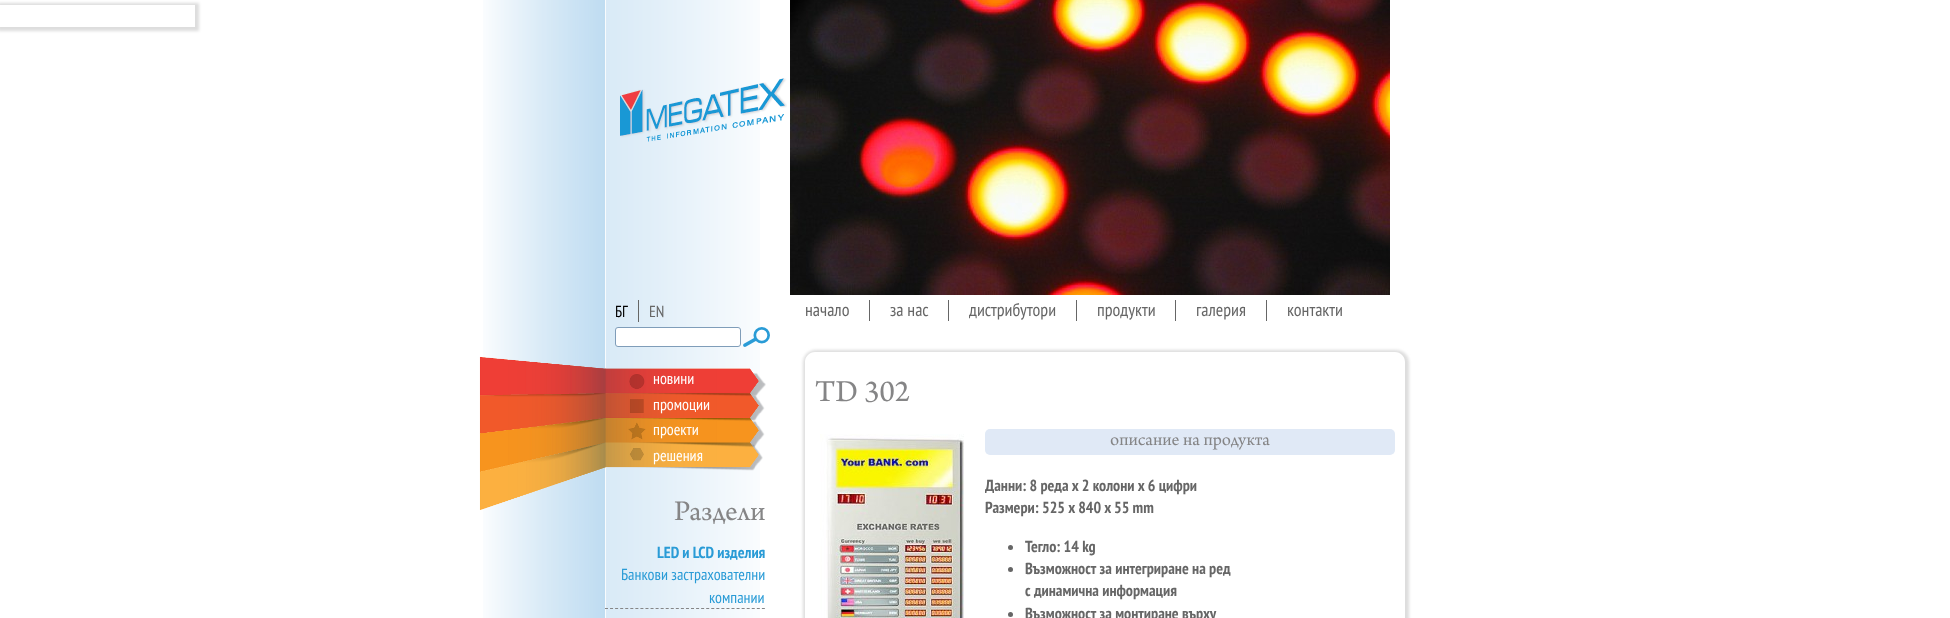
<svg xmlns="http://www.w3.org/2000/svg" width="1950" height="618" viewBox="0 0 1950 618">
  <defs>
    <clipPath id="clip1"><path d="M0 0H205V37H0ZM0 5H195V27H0Z" clip-rule="evenodd"/></clipPath>
    <filter id="blur1" x="-50%" y="-200%" width="200%" height="500%"><feGaussianBlur stdDeviation="1.5"/></filter>
    <clipPath id="clip2"><path d="M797 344H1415V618H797ZM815 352H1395C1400.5 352 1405 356.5 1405 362V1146C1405 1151.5 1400.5 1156 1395 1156H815C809.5 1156 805 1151.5 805 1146V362C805 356.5 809.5 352 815 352Z" clip-rule="evenodd"/></clipPath>
  </defs>
  <rect width="100%" height="100%" fill="#ffffff"/>
  <g clip-path="url(#clip1)">
    <rect x="-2" y="3" width="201" height="28" fill="#dddddd" filter="url(#blur1)"/>
  </g>
  <image x="483" y="0" width="277" height="618" href="img1.png"/>
  <image x="620" y="78" width="167" height="64" href="img2.png"/>
  <image x="790" y="0" width="600" height="295" href="img3.png"/>
  <rect x="638" y="300" width="1" height="22" fill="#666666"/>
  <text x="615" y="317" font-family="PT Sans Narrow" font-size="16" fill="#000000">БГ</text>
  <text x="649" y="317" font-family="PT Sans Narrow" font-size="16" fill="#666666">EN</text>
  <rect x="869" y="300" width="1" height="21" fill="#666666"/>
  <text x="805" y="316" font-family="PT Sans Narrow" font-size="18" fill="#666666">начало</text>
  <rect x="948" y="300" width="1" height="21" fill="#666666"/>
  <text x="890" y="316" font-family="PT Sans Narrow" font-size="18" fill="#666666">за нас</text>
  <rect x="1076" y="300" width="1" height="21" fill="#666666"/>
  <text x="969" y="316" font-family="PT Sans Narrow" font-size="18" fill="#666666">дистрибутори</text>
  <rect x="1175" y="300" width="1" height="21" fill="#666666"/>
  <text x="1097" y="316" font-family="PT Sans Narrow" font-size="18" fill="#666666">продукти</text>
  <rect x="1266" y="300" width="1" height="21" fill="#666666"/>
  <text x="1196" y="316" font-family="PT Sans Narrow" font-size="18" fill="#666666">галерия</text>
  <text x="1287" y="316" font-family="PT Sans Narrow" font-size="18" fill="#666666">контакти</text>
  <rect x="615.5" y="327.5" width="125" height="19" rx="2.5" fill="#ffffff" stroke="#7f9db9"/>
  <image x="743" y="327" width="27" height="20" href="img4.png"/>
  <image x="479" y="356" width="287" height="154" href="img5.png"/>
  <text x="653" y="384" font-family="PT Sans Narrow" font-size="16" fill="#ffffff">новини</text>
  <text x="653" y="410" font-family="PT Sans Narrow" font-size="16" fill="#ffffff">промоции</text>
  <text x="653" y="435" font-family="PT Sans Narrow" font-size="16" fill="#ffffff">проекти</text>
  <text x="653" y="461" font-family="PT Sans Narrow" font-size="16" fill="#ffffff">решения</text>
  <text x="674" y="520" font-family="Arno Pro" font-size="30" fill="#858586">Раздели</text>
  <text x="657" y="558" font-family="PT Sans Narrow" font-size="16" font-weight="bold" fill="#299bd6">LED и LCD изделия</text>
  <path d="M605 608.5H765" fill="none" stroke="#858586" stroke-dasharray="3 2.06"/>
  <text x="621" y="580" font-family="PT Sans Narrow" font-size="16" fill="#299bd6">Банкови застрахователни</text>
  <text x="709" y="603" font-family="PT Sans Narrow" font-size="16" fill="#299bd6">компании</text>
  <g clip-path="url(#clip2)">
    <rect x="803" y="350" width="606" height="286" rx="13" fill="#dddddd" filter="url(#blur1)"/>
  </g>
  <text x="815" y="401" font-family="Arno Pro" font-size="32" fill="#858586">TD 302</text>
  <image x="820" y="434" width="144" height="184" href="img6.png"/>
  <rect x="985" y="429" width="410" height="26" rx="5" fill="#e0e9f6"/>
  <text x="1110" y="445" font-family="Arno Pro" font-size="18.75" fill="#858586">описание на продукта</text>
  <text x="985" y="491" font-family="PT Sans Narrow" font-size="16" font-weight="bold" fill="#666666">Данни: 8 реда x 2 колони x 6 цифри</text>
  <text x="985" y="513" font-family="PT Sans Narrow" font-size="16" font-weight="bold" fill="#666666">Размери: 525 x 840 x 55 mm</text>
  <circle cx="1010.5" cy="547.5" r="2.5" fill="#666666"/>
  <text x="1025" y="552" font-family="PT Sans Narrow" font-size="16" font-weight="bold" fill="#666666">Тегло: 14 kg</text>
  <circle cx="1010.5" cy="569.5" r="2.5" fill="#666666"/>
  <text x="1025" y="574" font-family="PT Sans Narrow" font-size="16" font-weight="bold" fill="#666666">Възможност за интегриране на ред</text>
  <text x="1025" y="596" font-family="PT Sans Narrow" font-size="16" font-weight="bold" fill="#666666">с динамична информация</text>
  <circle cx="1010.5" cy="614.5" r="2.5" fill="#666666"/>
  <text x="1025" y="619" font-family="PT Sans Narrow" font-size="16" font-weight="bold" fill="#666666">Възможност за монтиране върху</text>
</svg>
